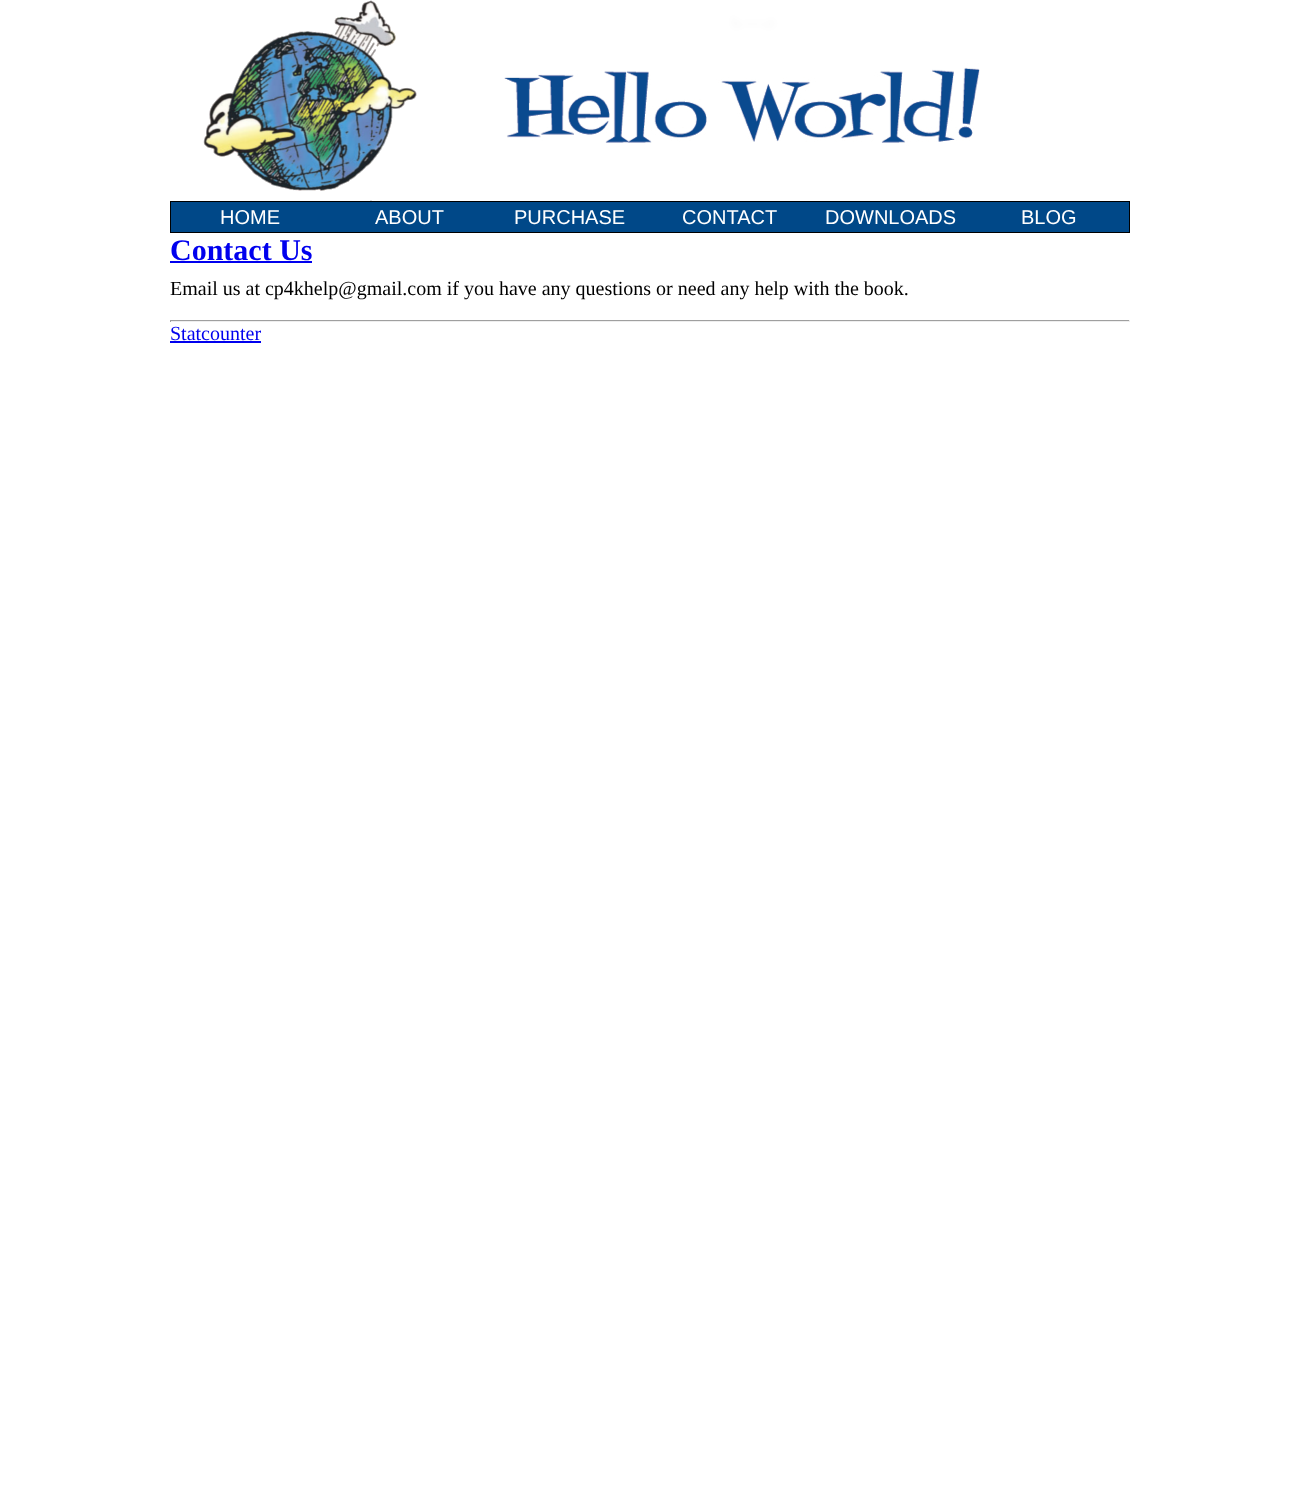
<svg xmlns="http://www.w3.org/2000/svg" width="1299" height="1494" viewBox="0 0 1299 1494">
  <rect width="100%" height="100%" fill="#ffffff"/>
  <image x="203" y="0" width="777" height="201" href="img1.png"/>
  <rect x="170.5" y="201.5" width="959" height="31" fill="#004888" stroke="#000000"/>
  <text x="220" y="224" font-family="Liberation Sans" font-size="20" fill="#ffffff">HOME</text>
  <text x="375" y="224" font-family="Liberation Sans" font-size="20" fill="#ffffff">ABOUT</text>
  <text x="514" y="224" font-family="Liberation Sans" font-size="20" fill="#ffffff">PURCHASE</text>
  <text x="682" y="224" font-family="Liberation Sans" font-size="20" fill="#ffffff">CONTACT</text>
  <text x="825" y="224" font-family="Liberation Sans" font-size="20" fill="#ffffff">DOWNLOADS</text>
  <text x="1021" y="224" font-family="Liberation Sans" font-size="20" fill="#ffffff">BLOG</text>
  <text x="170" y="260" font-family="Liberation Serif" font-size="30" font-weight="bold" fill="#0000ee">Contact Us</text>
  <rect x="170" y="261" width="142" height="2" fill="#0000ee"/>
  <text x="170" y="295" font-family="Liberation Serif" font-size="20" fill="#000000">Email us at cp4khelp@gmail.com if you have any questions or need any help with the book.</text>
  <rect x="170" y="320" width="960" height="1" fill="#9f9f9f"/>
  <rect x="1129" y="320" width="1" height="2" fill="#eeeeee"/>
  <rect x="170" y="321" width="960" height="1" fill="#eeeeee"/>
  <rect x="170" y="320" width="1" height="2" fill="#9f9f9f"/>
  <text x="170" y="340" font-family="Liberation Serif" font-size="20" fill="#0000ee">Statcounter</text>
  <rect x="170" y="341" width="91" height="2" fill="#0000ee"/>
</svg>
